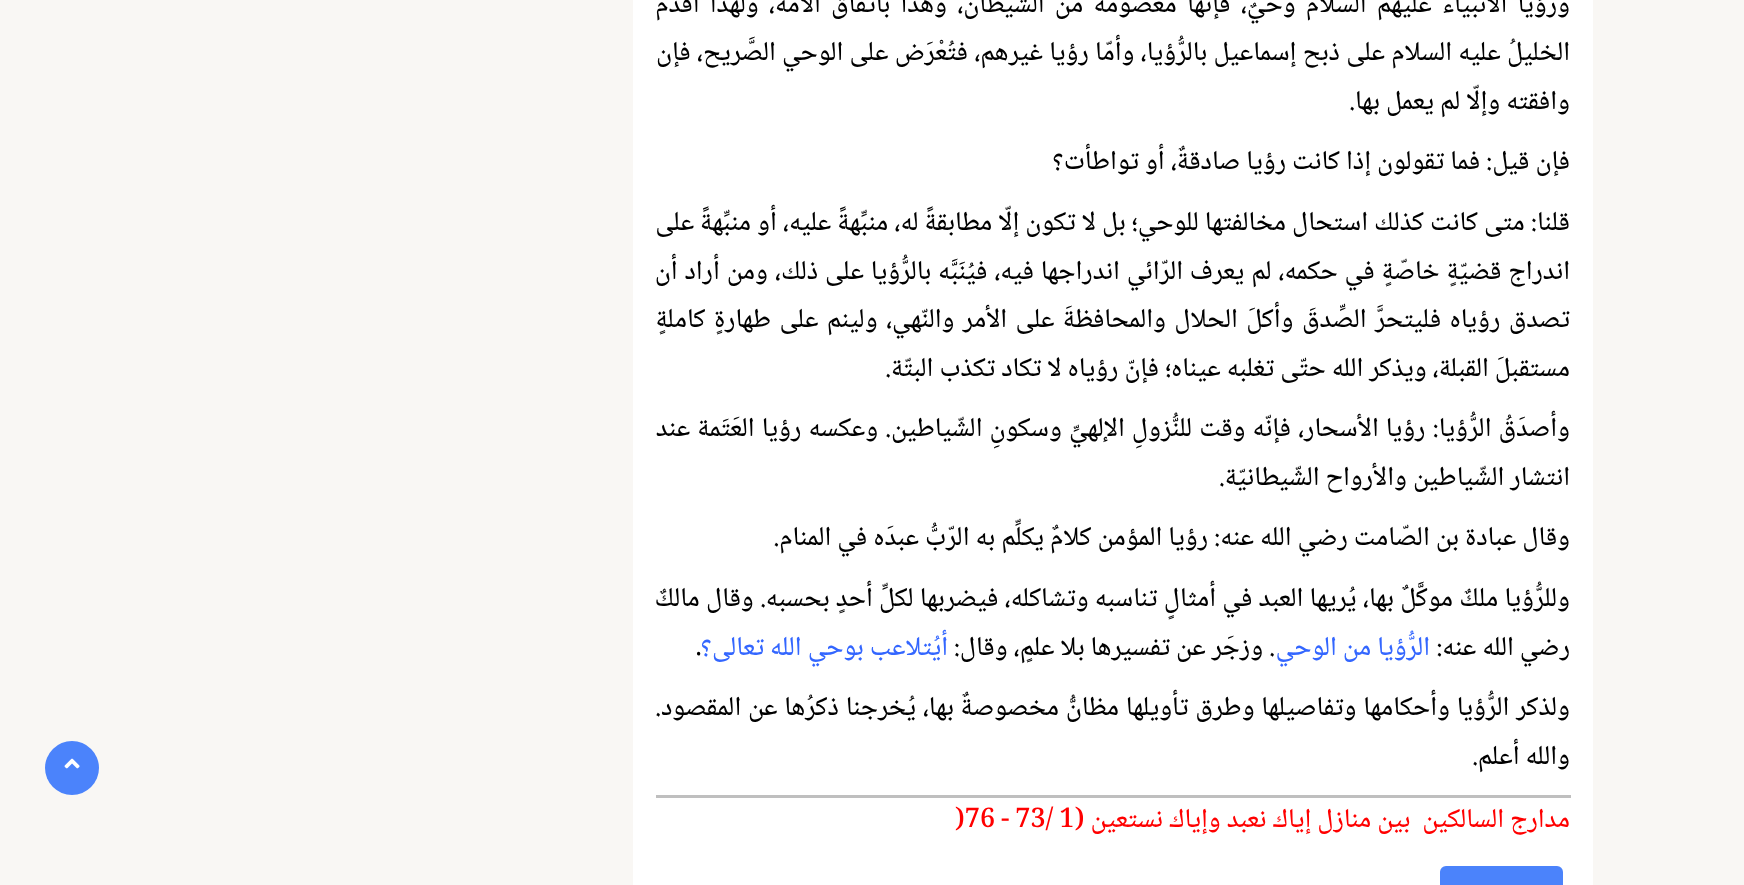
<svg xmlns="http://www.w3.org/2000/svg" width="1744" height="885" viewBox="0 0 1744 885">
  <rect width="100%" height="100%" fill="#f9f7f4"/>
  <rect x="633" y="0" width="960" height="885" fill="#ffffff"/>
  <text x="1570" y="12" word-spacing="4.25" font-family="Noto Naskh Arabic" font-size="27" font-weight="500" direction="rtl" fill="#000000">ورؤيا الأنبياء عليهم السلام وحيٌ، فإنّها معصومةٌ من الشّيطان، وهذا باتِّفاق الأمّة، ولهذا أقدم</text>
  <text x="1570" y="60" word-spacing="0.25" font-family="Noto Naskh Arabic" font-size="27" font-weight="500" direction="rtl" fill="#000000">الخليلُ عليه السلام على ذبح إسماعيل بالرُّؤيا، وأمّا رؤيا غيرهم، فتُعْرَض على الوحي الصَّريح، فإن</text>
  <text x="1570" y="109" font-family="Noto Naskh Arabic" font-size="27" font-weight="500" direction="rtl" fill="#000000">وافقته وإلّا لم يعمل بها.</text>
  <text x="1570" y="169" font-family="Noto Naskh Arabic" font-size="27" font-weight="500" direction="rtl" fill="#000000">فإن قيل: فما تقولون إذا كانت رؤيا صادقةٌ، أو تواطأت؟</text>
  <text x="1570" y="230" font-family="Noto Naskh Arabic" font-size="27" font-weight="500" direction="rtl" fill="#000000">قلنا: متى كانت كذلك استحال مخالفتها للوحي؛ بل لا تكون إلّا مطابقةً له، منبِّهةً عليه، أو منبِّهةً على</text>
  <text x="1570" y="279" word-spacing="0.9" font-family="Noto Naskh Arabic" font-size="27" font-weight="500" direction="rtl" fill="#000000">اندراج قضيّةٍ خاصّةٍ في حكمه، لم يعرف الرّائي اندراجها فيه، فيُنَبَّه بالرُّؤيا على ذلك، ومن أراد أن</text>
  <text x="1570" y="327" word-spacing="2.4" font-family="Noto Naskh Arabic" font-size="27" font-weight="500" direction="rtl" fill="#000000">تصدق رؤياه فليتحرَّ الصِّدقَ وأكلَ الحلال والمحافظةَ على الأمر والنّهي، ولينم على طهارةٍ كاملةٍ</text>
  <text x="1570" y="376" font-family="Noto Naskh Arabic" font-size="27" font-weight="500" direction="rtl" fill="#000000">مستقبلَ القبلة، ويذكر الله حتّى تغلبه عيناه؛ فإنّ رؤياه لا تكاد تكذب البتّة.</text>
  <text x="1570" y="436" word-spacing="1.1" font-family="Noto Naskh Arabic" font-size="27" font-weight="500" direction="rtl" fill="#000000">وأصدَقُ الرُّؤيا: رؤيا الأسحار، فإنّه وقت للنُّزولِ الإلهيِّ وسكونِ الشّياطين. وعكسه رؤيا العَتَمة عند</text>
  <text x="1570" y="485" font-family="Noto Naskh Arabic" font-size="27" font-weight="500" direction="rtl" fill="#000000">انتشار الشّياطين والأرواح الشّيطانيّة.</text>
  <text x="1570" y="545" font-family="Noto Naskh Arabic" font-size="27" font-weight="500" direction="rtl" fill="#000000">وقال عبادة بن الصّامت رضي الله عنه: رؤيا المؤمن كلامٌ يكلِّم به الرّبُّ عبدَه في المنام.</text>
  <text x="1570" y="606" word-spacing="0.25" font-family="Noto Naskh Arabic" font-size="27" font-weight="500" direction="rtl" fill="#000000">وللرُّؤيا ملكٌ موكَّلٌ بها، يُريها العبد في أمثالٍ تناسبه وتشاكله، فيضربها لكلِّ أحدٍ بحسبه. وقال مالكٌ</text>
  <text x="1570" y="655" font-family="Noto Naskh Arabic" font-size="27" font-weight="500" direction="rtl" fill="#000000">رضي الله عنه:</text>
  <text x="1430" y="655" font-family="Noto Naskh Arabic" font-size="27" font-weight="500" direction="rtl" fill="#3366ff">الرُّؤيا من الوحي</text>
  <text x="1275" y="655" font-family="Noto Naskh Arabic" font-size="27" font-weight="500" direction="rtl" fill="#000000">. وزجَر عن تفسيرها بلا علمٍ، وقال:</text>
  <text x="948" y="655" font-family="Noto Naskh Arabic" font-size="27" font-weight="500" direction="rtl" fill="#3366ff">أيُتلاعب بوحي الله تعالى؟</text>
  <text x="695" y="655" font-family="Noto Naskh Arabic" font-size="27" font-weight="500" fill="#000000">.</text>
  <text x="1570" y="715" word-spacing="0.75" font-family="Noto Naskh Arabic" font-size="27" font-weight="500" direction="rtl" fill="#000000">ولذكر الرُّؤيا وأحكامها وتفاصيلها وطرق تأويلها مظانُّ مخصوصةٌ بها، يُخرجنا ذكرُها عن المقصود.</text>
  <text x="1570" y="764" font-family="Noto Naskh Arabic" font-size="27" font-weight="500" direction="rtl" fill="#000000">والله أعلم.</text>
  <rect x="656" y="795" width="915" height="3" fill="#bfbfbf"/>
  <text x="1570" y="827" font-family="Noto Naskh Arabic" font-size="27" font-weight="500" direction="rtl" fill="#ff0000" xml:space="preserve">مدارج السالكين  بين منازل إياك نعبد وإياك نستعين (</text>
  <text x="955" y="827" font-family="Noto Naskh Arabic" font-size="27" font-weight="500" fill="#ff0000">)76 - 73/ 1</text>
  <rect x="1441" y="867" width="121" height="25" rx="5" fill="#4b83fb" stroke="#4b83fb" stroke-width="2"/>
  <circle cx="72" cy="768" r="27" fill="#4b83fb"/>
  <image x="64" y="758" width="16" height="11" href="img1.png"/>
</svg>
